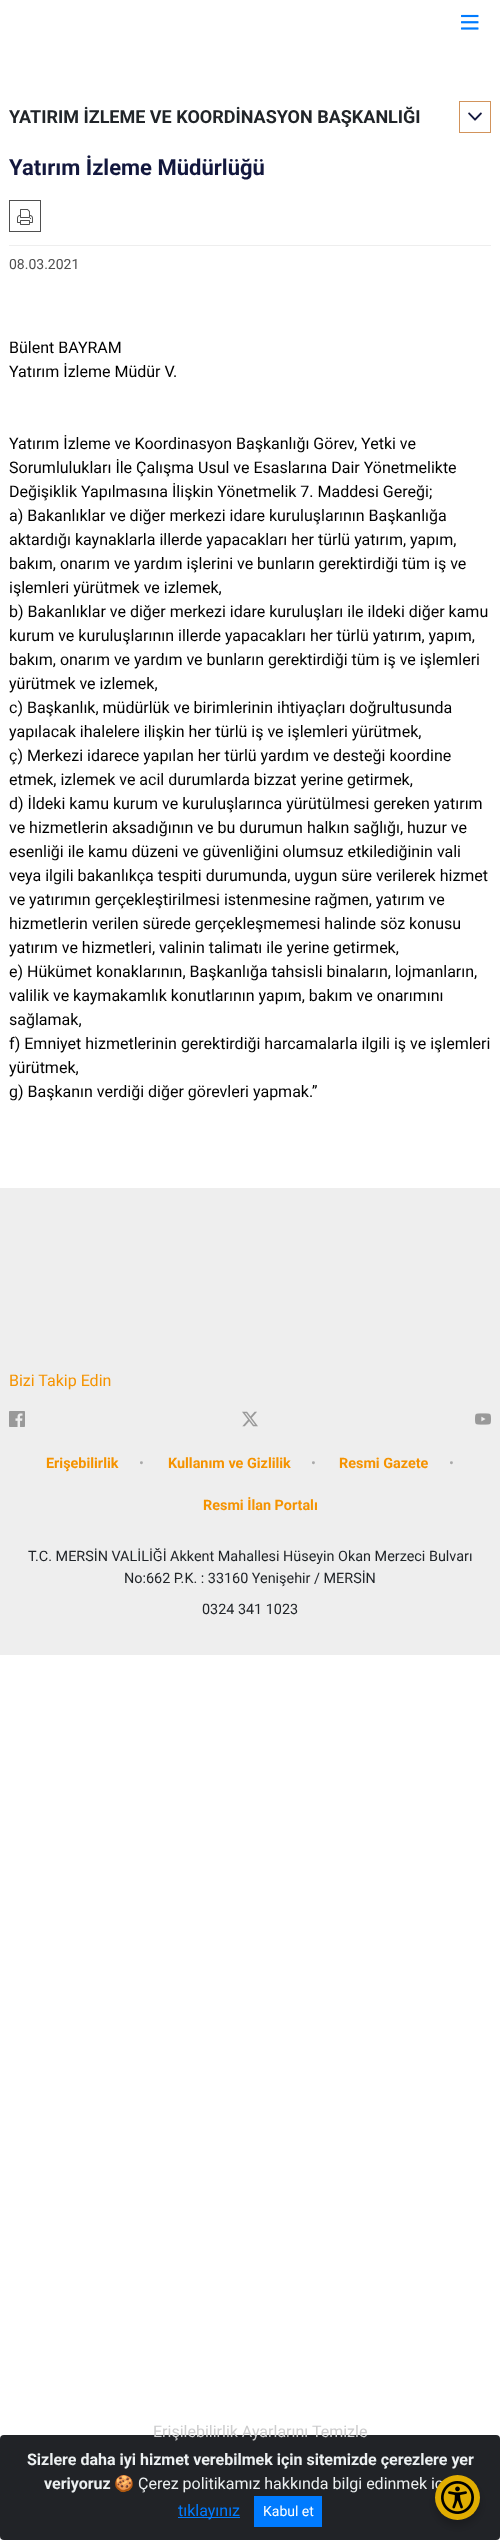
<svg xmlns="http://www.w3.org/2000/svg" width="500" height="2540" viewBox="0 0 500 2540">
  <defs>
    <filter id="blur1" x="-50%" y="-200%" width="200%" height="500%"><feGaussianBlur stdDeviation="4"/></filter>
  </defs>
  <rect width="100%" height="100%" fill="#ffffff"/>
  <image x="461" y="14" width="18" height="16" href="img1.png"/>
  <text x="9" y="123" font-family="Roboto" font-size="18" font-weight="bold" fill="#212529">YATIRIM İZLEME VE KOORDİNASYON BAŞKANLIĞI</text>
  <rect x="459.5" y="101.5" width="31" height="31" fill="none" stroke="#d2935b"/>
  <image x="468" y="112" width="14" height="9" href="img2.png"/>
  <rect x="9" y="245" width="482" height="1" fill="#eeeeee"/>
  <text x="9" y="175" font-family="Roboto" font-size="22" font-weight="bold" fill="#13183e">Yatırım İzleme Müdürlüğü</text>
  <rect x="9.5" y="200.5" width="31" height="31" fill="none" stroke="#4f4f4f"/>
  <image x="17" y="209" width="16" height="16" href="img3.png"/>
  <text x="9" y="269" font-family="Roboto" font-size="14" fill="#4f4f4f">08.03.2021</text>
  <text x="9" y="353" font-family="Roboto" font-size="16" fill="#000000">Bülent BAYRAM</text>
  <text x="9" y="377" font-family="Roboto" font-size="16" fill="#000000">Yatırım İzleme Müdür V.</text>
  <text x="9" y="449" font-family="Roboto" font-size="16" fill="#000000">Yatırım İzleme ve Koordinasyon Başkanlığı Görev, Yetki ve</text>
  <text x="9" y="473" font-family="Roboto" font-size="16" fill="#000000">Sorumlulukları İle Çalışma Usul ve Esaslarına Dair Yönetmelikte</text>
  <text x="9" y="497" font-family="Roboto" font-size="16" fill="#000000">Değişiklik Yapılmasına İlişkin Yönetmelik 7. Maddesi Gereği;</text>
  <text x="9" y="521" font-family="Roboto" font-size="16" fill="#000000">a) Bakanlıklar ve diğer merkezi idare kuruluşlarının Başkanlığa</text>
  <text x="9" y="545" font-family="Roboto" font-size="16" fill="#000000">aktardığı kaynaklarla illerde yapacakları her türlü yatırım, yapım,</text>
  <text x="9" y="569" font-family="Roboto" font-size="16" fill="#000000">bakım, onarım ve yardım işlerini ve bunların gerektirdiği tüm iş ve</text>
  <text x="9" y="593" font-family="Roboto" font-size="16" fill="#000000">işlemleri yürütmek ve izlemek,</text>
  <text x="9" y="617" font-family="Roboto" font-size="16" fill="#000000">b) Bakanlıklar ve diğer merkezi idare kuruluşları ile ildeki diğer kamu</text>
  <text x="9" y="641" font-family="Roboto" font-size="16" fill="#000000">kurum ve kuruluşlarının illerde yapacakları her türlü yatırım, yapım,</text>
  <text x="9" y="665" font-family="Roboto" font-size="16" fill="#000000">bakım, onarım ve yardım ve bunların gerektirdiği tüm iş ve işlemleri</text>
  <text x="9" y="689" font-family="Roboto" font-size="16" fill="#000000">yürütmek ve izlemek,</text>
  <text x="9" y="713" font-family="Roboto" font-size="16" fill="#000000">c) Başkanlık, müdürlük ve birimlerinin ihtiyaçları doğrultusunda</text>
  <text x="9" y="737" font-family="Roboto" font-size="16" fill="#000000">yapılacak ihalelere ilişkin her türlü iş ve işlemleri yürütmek,</text>
  <text x="9" y="761" font-family="Roboto" font-size="16" fill="#000000">ç) Merkezi idarece yapılan her türlü yardım ve desteği koordine</text>
  <text x="9" y="785" font-family="Roboto" font-size="16" fill="#000000">etmek, izlemek ve acil durumlarda bizzat yerine getirmek,</text>
  <text x="9" y="809" font-family="Roboto" font-size="16" fill="#000000">d) İldeki kamu kurum ve kuruluşlarınca yürütülmesi gereken yatırım</text>
  <text x="9" y="833" font-family="Roboto" font-size="16" fill="#000000">ve hizmetlerin aksadığının ve bu durumun halkın sağlığı, huzur ve</text>
  <text x="9" y="857" font-family="Roboto" font-size="16" fill="#000000">esenliği ile kamu düzeni ve güvenliğini olumsuz etkilediğinin vali</text>
  <text x="9" y="881" font-family="Roboto" font-size="16" fill="#000000">veya ilgili bakanlıkça tespiti durumunda, uygun süre verilerek hizmet</text>
  <text x="9" y="905" font-family="Roboto" font-size="16" fill="#000000">ve yatırımın gerçekleştirilmesi istenmesine rağmen, yatırım ve</text>
  <text x="9" y="929" font-family="Roboto" font-size="16" fill="#000000">hizmetlerin verilen sürede gerçekleşmemesi halinde söz konusu</text>
  <text x="9" y="953" font-family="Roboto" font-size="16" fill="#000000">yatırım ve hizmetleri, valinin talimatı ile yerine getirmek,</text>
  <text x="9" y="977" font-family="Roboto" font-size="16" fill="#000000">e) Hükümet konaklarının, Başkanlığa tahsisli binaların, lojmanların,</text>
  <text x="9" y="1001" font-family="Roboto" font-size="16" fill="#000000">valilik ve kaymakamlık konutlarının yapım, bakım ve onarımını</text>
  <text x="9" y="1025" font-family="Roboto" font-size="16" fill="#000000">sağlamak,</text>
  <text x="9" y="1049" font-family="Roboto" font-size="16" fill="#000000">f) Emniyet hizmetlerinin gerektirdiği harcamalarla ilgili iş ve işlemleri</text>
  <text x="9" y="1073" font-family="Roboto" font-size="16" fill="#000000">yürütmek,</text>
  <text x="9" y="1097" font-family="Roboto" font-size="16" fill="#000000">g) Başkanın verdiği diğer görevleri yapmak.”</text>
  <rect x="0" y="1188" width="500" height="467" fill="#eeeeee"/>
  <text x="9" y="1386" font-family="Roboto" font-size="16" fill="#f59300">Bizi Takip Edin</text>
  <image x="9" y="1411" width="16" height="16" href="img4.png"/>
  <image x="242" y="1411" width="16" height="16" href="img5.png"/>
  <image x="475" y="1413" width="16" height="12" href="img6.png"/>
  <text x="46" y="1468" font-family="Roboto" font-size="14.4" font-weight="bold" fill="#f59300">Erişebilirlik</text>
  <text x="139" y="1468" font-family="Roboto" font-size="14.4" fill="#aaaaaa">•</text>
  <text x="168" y="1468" font-family="Roboto" font-size="14.4" font-weight="bold" fill="#f59300">Kullanım ve Gizlilik</text>
  <text x="311" y="1468" font-family="Roboto" font-size="14.4" fill="#aaaaaa">•</text>
  <text x="339" y="1468" font-family="Roboto" font-size="14.4" font-weight="bold" fill="#f59300">Resmi Gazete</text>
  <text x="449" y="1468" font-family="Roboto" font-size="14.4" fill="#aaaaaa">•</text>
  <text x="203" y="1510" font-family="Roboto" font-size="14.4" font-weight="bold" fill="#f59300">Resmi İlan Portalı</text>
  <text x="28" y="1561" font-family="Roboto" font-size="14.4" fill="#212529">T.C. MERSİN VALİLİĞİ Akkent Mahallesi Hüseyin Okan Merzeci Bulvarı</text>
  <text x="124" y="1583" font-family="Roboto" font-size="14.4" fill="#212529">No:662 P.K. : 33160 Yenişehir / MERSİN</text>
  <text x="202" y="1614" font-family="Roboto" font-size="14.4" fill="#212529">0324 341 1023</text>
  <rect x="0" y="2435" width="500" height="105" rx="4" fill="#212327"/>
  <text x="153" y="2437" font-family="Roboto" font-size="16" fill="#cccccd">Erişilebilirlik Ayarlarını Temizle</text>
  <rect x="435" y="2481" width="45" height="45" rx="22.5" fill="#000000" fill-opacity="0.2" filter="url(#blur1)"/>
  <text x="138" y="2489" font-family="Roboto" font-size="16" fill="#ecf0f1">Çerez politikamız hakkında bilgi edinmek iç</text>
  <circle cx="457.5" cy="2497.5" r="22.5" fill="#e1ad01"/>
  <image x="441" y="2481" width="33" height="33" href="img7.png"/>
  <text x="27" y="2465" font-family="Roboto" font-size="16" font-weight="bold" fill="#ecf0f1">Sizlere daha iyi hizmet verebilmek için sitemizde çerezlere yer</text>
  <text x="44" y="2489" font-family="Roboto" font-size="16" font-weight="bold" fill="#ecf0f1">veriyoruz</text>
  <text x="114" y="2489" font-family="Noto Color Emoji" font-size="16" fill="#ecf0f1">🍪</text>
  <rect x="178" y="2517" width="62" height="1" fill="#007bff"/>
  <text x="178" y="2516" font-family="Roboto" font-size="16" fill="#007bff">tıklayınız</text>
  <rect x="254" y="2496" width="68" height="31" fill="#007bff"/>
  <text x="263" y="2516" font-family="Roboto" font-size="14" fill="#ffffff">Kabul et</text>
</svg>
